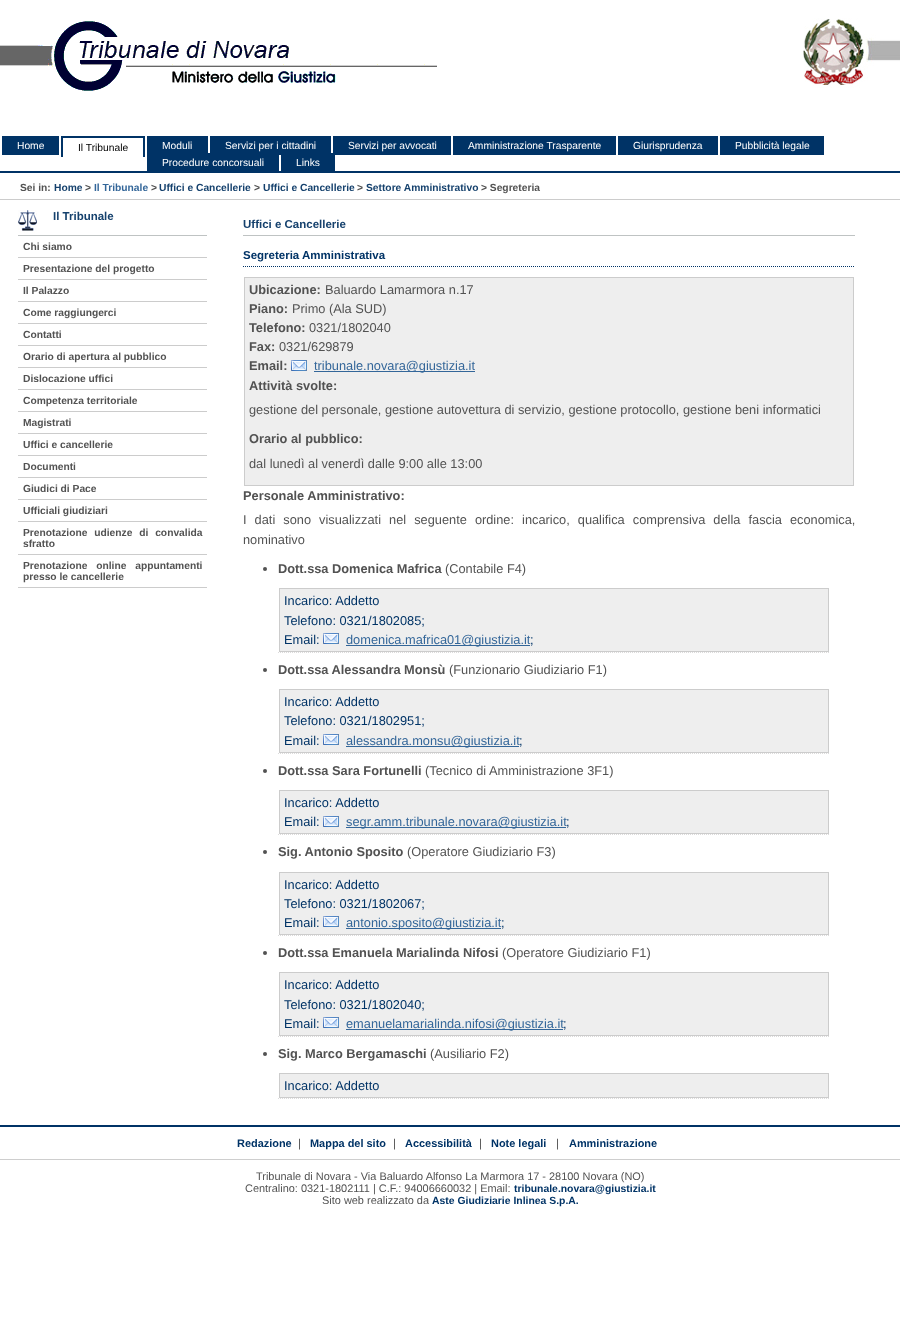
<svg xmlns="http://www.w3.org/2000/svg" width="900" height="1340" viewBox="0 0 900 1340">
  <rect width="100%" height="100%" fill="#ffffff"/>
  <rect x="0" y="171" width="900" height="2" fill="#003366"/>
  <image x="0" y="21" width="437" height="70" href="img1.png"/>
  <image x="803" y="18" width="97" height="70" href="img2.png"/>
  <rect x="2" y="136" width="57" height="19" fill="#003366"/>
  <text x="17" y="149" font-family="Liberation Sans" font-size="10.25" fill="#ffffff">Home</text>
  <rect x="61" y="136" width="84" height="2" fill="#003366"/>
  <rect x="143" y="136" width="2" height="21" fill="#003366"/>
  <rect x="61" y="136" width="2" height="21" fill="#003366"/>
  <text x="78" y="151" font-family="Liberation Sans" font-size="10.25" fill="#000000">Il Tribunale</text>
  <rect x="147" y="136" width="61" height="17" fill="#003366"/>
  <text x="162" y="149" font-family="Liberation Sans" font-size="10.25" fill="#ffffff">Moduli</text>
  <rect x="210" y="136" width="121" height="19" fill="#003366"/>
  <text x="225" y="149" font-family="Liberation Sans" font-size="10.25" fill="#ffffff">Servizi per i cittadini</text>
  <rect x="333" y="136" width="118" height="19" fill="#003366"/>
  <text x="348" y="149" font-family="Liberation Sans" font-size="10.25" fill="#ffffff">Servizi per avvocati</text>
  <rect x="453" y="136" width="163" height="19" fill="#003366"/>
  <text x="468" y="149" font-family="Liberation Sans" font-size="10.25" fill="#ffffff">Amministrazione Trasparente</text>
  <rect x="618" y="136" width="100" height="19" fill="#003366"/>
  <text x="633" y="149" font-family="Liberation Sans" font-size="10.25" fill="#ffffff">Giurisprudenza</text>
  <rect x="720" y="136" width="104" height="19" fill="#003366"/>
  <text x="735" y="149" font-family="Liberation Sans" font-size="10.25" fill="#ffffff">Pubblicità legale</text>
  <rect x="147" y="153" width="132" height="18" fill="#003366"/>
  <text x="162" y="166" font-family="Liberation Sans" font-size="10.25" fill="#ffffff">Procedure concorsuali</text>
  <rect x="281" y="153" width="54" height="18" fill="#003366"/>
  <text x="296" y="166" font-family="Liberation Sans" font-size="10.25" fill="#ffffff">Links</text>
  <rect x="0" y="199" width="900" height="1" fill="#cccccc"/>
  <text x="20" y="191" font-family="Liberation Sans" font-size="10.25" font-weight="bold" fill="#525252">Sei in:</text>
  <text x="54" y="191" font-family="Liberation Sans" font-size="10.25" font-weight="bold" fill="#15416d">Home</text>
  <text x="85" y="191" font-family="Liberation Sans" font-size="10.25" font-weight="bold" fill="#525252">&gt;</text>
  <text x="94" y="191" font-family="Liberation Sans" font-size="10.25" font-weight="bold" fill="#336699">Il Tribunale</text>
  <text x="151" y="191" font-family="Liberation Sans" font-size="10.25" font-weight="bold" fill="#525252">&gt;</text>
  <text x="159" y="191" font-family="Liberation Sans" font-size="10.25" font-weight="bold" fill="#15416d">Uffici e Cancellerie</text>
  <text x="254" y="191" font-family="Liberation Sans" font-size="10.25" font-weight="bold" fill="#525252">&gt;</text>
  <text x="263" y="191" font-family="Liberation Sans" font-size="10.25" font-weight="bold" fill="#15416d">Uffici e Cancellerie</text>
  <text x="357" y="191" font-family="Liberation Sans" font-size="10.25" font-weight="bold" fill="#525252">&gt;</text>
  <text x="366" y="191" font-family="Liberation Sans" font-size="10.25" font-weight="bold" fill="#15416d">Settore Amministrativo</text>
  <text x="481" y="191" font-family="Liberation Sans" font-size="10.25" font-weight="bold" fill="#525252">&gt; Segreteria</text>
  <image x="18" y="210" width="19" height="23" href="img3.png"/>
  <rect x="18" y="235" width="189" height="1" fill="#bfc3c3"/>
  <text x="53" y="220" font-family="Liberation Sans" font-size="11.5" font-weight="bold" fill="#15416d">Il Tribunale</text>
  <rect x="18" y="257" width="189" height="1" fill="#cccccc"/>
  <text x="23" y="250" font-family="Liberation Sans" font-size="10.25" font-weight="bold" fill="#525252">Chi siamo</text>
  <rect x="18" y="279" width="189" height="1" fill="#cccccc"/>
  <text x="23" y="272" font-family="Liberation Sans" font-size="10.25" font-weight="bold" fill="#525252">Presentazione del progetto</text>
  <rect x="18" y="301" width="189" height="1" fill="#cccccc"/>
  <text x="23" y="294" font-family="Liberation Sans" font-size="10.25" font-weight="bold" fill="#525252">Il Palazzo</text>
  <rect x="18" y="323" width="189" height="1" fill="#cccccc"/>
  <text x="23" y="316" font-family="Liberation Sans" font-size="10.25" font-weight="bold" fill="#525252">Come raggiungerci</text>
  <rect x="18" y="345" width="189" height="1" fill="#cccccc"/>
  <text x="23" y="338" font-family="Liberation Sans" font-size="10.25" font-weight="bold" fill="#525252">Contatti</text>
  <rect x="18" y="367" width="189" height="1" fill="#cccccc"/>
  <text x="23" y="360" font-family="Liberation Sans" font-size="10.25" font-weight="bold" fill="#525252">Orario di apertura al pubblico</text>
  <rect x="18" y="389" width="189" height="1" fill="#cccccc"/>
  <text x="23" y="382" font-family="Liberation Sans" font-size="10.25" font-weight="bold" fill="#525252">Dislocazione uffici</text>
  <rect x="18" y="411" width="189" height="1" fill="#cccccc"/>
  <text x="23" y="404" font-family="Liberation Sans" font-size="10.25" font-weight="bold" fill="#525252">Competenza territoriale</text>
  <rect x="18" y="433" width="189" height="1" fill="#cccccc"/>
  <text x="23" y="426" font-family="Liberation Sans" font-size="10.25" font-weight="bold" fill="#525252">Magistrati</text>
  <rect x="18" y="455" width="189" height="1" fill="#cccccc"/>
  <text x="23" y="448" font-family="Liberation Sans" font-size="10.25" font-weight="bold" fill="#525252">Uffici e cancellerie</text>
  <rect x="18" y="477" width="189" height="1" fill="#cccccc"/>
  <text x="23" y="470" font-family="Liberation Sans" font-size="10.25" font-weight="bold" fill="#525252">Documenti</text>
  <rect x="18" y="499" width="189" height="1" fill="#cccccc"/>
  <text x="23" y="492" font-family="Liberation Sans" font-size="10.25" font-weight="bold" fill="#525252">Giudici di Pace</text>
  <rect x="18" y="521" width="189" height="1" fill="#cccccc"/>
  <text x="23" y="514" font-family="Liberation Sans" font-size="10.25" font-weight="bold" fill="#525252">Ufficiali giudiziari</text>
  <rect x="18" y="554" width="189" height="1" fill="#cccccc"/>
  <text x="23" y="536" word-spacing="4" font-family="Liberation Sans" font-size="10.25" font-weight="bold" fill="#525252">Prenotazione udienze di convalida</text>
  <text x="23" y="547" font-family="Liberation Sans" font-size="10.25" font-weight="bold" fill="#525252">sfratto</text>
  <rect x="18" y="587" width="189" height="1" fill="#cccccc"/>
  <text x="23" y="569" word-spacing="6" font-family="Liberation Sans" font-size="10.25" font-weight="bold" fill="#525252">Prenotazione online appuntamenti</text>
  <text x="23" y="580" font-family="Liberation Sans" font-size="10.25" font-weight="bold" fill="#525252">presso le cancellerie</text>
  <rect x="243" y="235" width="612" height="1" fill="#bfc3c3"/>
  <text x="243" y="228" font-family="Liberation Sans" font-size="11.5" font-weight="bold" fill="#15416d">Uffici e Cancellerie</text>
  <path d="M243 266.5H855" fill="none" stroke="#003366" stroke-dasharray="1 1"/>
  <text x="243" y="259" font-family="Liberation Sans" font-size="11.5" font-weight="bold" fill="#003366">Segreteria Amministrativa</text>
  <rect x="244.5" y="277.5" width="609" height="208" fill="#eeeeee" stroke="#cccccc"/>
  <text x="249" y="294" font-family="Liberation Sans" font-size="12.8" font-weight="bold" fill="#525252">Ubicazione:</text>
  <text x="325" y="294" font-family="Liberation Sans" font-size="12.8" fill="#525252">Baluardo Lamarmora n.17</text>
  <text x="249" y="313" font-family="Liberation Sans" font-size="12.8" font-weight="bold" fill="#525252">Piano:</text>
  <text x="292" y="313" font-family="Liberation Sans" font-size="12.8" fill="#525252">Primo (Ala SUD)</text>
  <text x="249" y="332" font-family="Liberation Sans" font-size="12.8" font-weight="bold" fill="#525252">Telefono:</text>
  <text x="309" y="332" font-family="Liberation Sans" font-size="12.8" fill="#525252">0321/1802040</text>
  <text x="249" y="351" font-family="Liberation Sans" font-size="12.8" font-weight="bold" fill="#525252">Fax:</text>
  <text x="279" y="351" font-family="Liberation Sans" font-size="12.8" fill="#525252">0321/629879</text>
  <text x="249" y="370" font-family="Liberation Sans" font-size="12.8" font-weight="bold" fill="#525252">Email:</text>
  <image x="291" y="360" width="16" height="11" href="img4.png"/>
  <rect x="314" y="371" width="161" height="1" fill="#336699"/>
  <text x="314" y="370" font-family="Liberation Sans" font-size="12.8" fill="#336699">tribunale.novara@giustizia.it</text>
  <text x="249" y="390" font-family="Liberation Sans" font-size="12.8" font-weight="bold" fill="#525252">Attività svolte:</text>
  <text x="249" y="414" font-family="Liberation Sans" font-size="12.8" fill="#525252">gestione del personale, gestione autovettura di servizio, gestione protocollo, gestione beni informatici</text>
  <text x="249" y="443" font-family="Liberation Sans" font-size="12.8" font-weight="bold" fill="#525252">Orario al pubblico:</text>
  <text x="249" y="468" font-family="Liberation Sans" font-size="12.8" fill="#525252">dal lunedì al venerdì dalle 9:00 alle 13:00</text>
  <text x="243" y="500" font-family="Liberation Sans" font-size="12.8" font-weight="bold" fill="#525252">Personale Amministrativo:</text>
  <text x="243" y="524" word-spacing="4.5" font-family="Liberation Sans" font-size="12.8" fill="#525252">I dati sono visualizzati nel seguente ordine: incarico, qualifica comprensiva della fascia economica,</text>
  <text x="243" y="544" font-family="Liberation Sans" font-size="12.8" fill="#525252">nominativo</text>
  <path d="M278 652.5H830" fill="none" stroke="#dcdbdb" stroke-dasharray="1 1"/>
  <circle cx="265" cy="569" r="2" fill="#525252"/>
  <text x="278" y="573" font-family="Liberation Sans" font-size="12.8" font-weight="bold" fill="#525252">Dott.ssa Domenica Mafrica</text>
  <text x="445" y="573" font-family="Liberation Sans" font-size="12.8" fill="#525252">(Contabile F4)</text>
  <rect x="279.5" y="588.5" width="549" height="63" fill="#eeeeee" stroke="#cccccc"/>
  <text x="284" y="605" font-family="Liberation Sans" font-size="12.8" fill="#003366">Incarico: Addetto</text>
  <text x="284" y="625" font-family="Liberation Sans" font-size="12.8" fill="#003366">Telefono: 0321/1802085;</text>
  <text x="284" y="644" font-family="Liberation Sans" font-size="12.8" fill="#003366">Email:</text>
  <image x="323" y="633" width="16" height="11" href="img4.png"/>
  <rect x="346" y="645" width="184" height="1" fill="#336699"/>
  <text x="346" y="644" font-family="Liberation Sans" font-size="12.8" fill="#336699">domenica.mafrica01@giustizia.it</text>
  <text x="530" y="644" font-family="Liberation Sans" font-size="12.8" fill="#003366">;</text>
  <path d="M278 753.5H830" fill="none" stroke="#dcdbdb" stroke-dasharray="1 1"/>
  <circle cx="265" cy="670" r="2" fill="#525252"/>
  <text x="278" y="674" font-family="Liberation Sans" font-size="12.8" font-weight="bold" fill="#525252">Dott.ssa Alessandra Monsù</text>
  <text x="449" y="674" font-family="Liberation Sans" font-size="12.8" fill="#525252">(Funzionario Giudiziario F1)</text>
  <rect x="279.5" y="689.5" width="549" height="63" fill="#eeeeee" stroke="#cccccc"/>
  <text x="284" y="706" font-family="Liberation Sans" font-size="12.8" fill="#003366">Incarico: Addetto</text>
  <text x="284" y="725" font-family="Liberation Sans" font-size="12.8" fill="#003366">Telefono: 0321/1802951;</text>
  <text x="284" y="745" font-family="Liberation Sans" font-size="12.8" fill="#003366">Email:</text>
  <image x="323" y="734" width="16" height="11" href="img4.png"/>
  <rect x="346" y="746" width="173" height="1" fill="#336699"/>
  <text x="346" y="745" font-family="Liberation Sans" font-size="12.8" fill="#336699">alessandra.monsu@giustizia.it</text>
  <text x="519" y="745" font-family="Liberation Sans" font-size="12.8" fill="#003366">;</text>
  <path d="M278 834.5H830" fill="none" stroke="#dcdbdb" stroke-dasharray="1 1"/>
  <circle cx="265" cy="771" r="2" fill="#525252"/>
  <text x="278" y="775" font-family="Liberation Sans" font-size="12.8" font-weight="bold" fill="#525252">Dott.ssa Sara Fortunelli</text>
  <text x="425" y="775" font-family="Liberation Sans" font-size="12.8" fill="#525252">(Tecnico di Amministrazione 3F1)</text>
  <rect x="279.5" y="790.5" width="549" height="43" fill="#eeeeee" stroke="#cccccc"/>
  <text x="284" y="807" font-family="Liberation Sans" font-size="12.8" fill="#003366">Incarico: Addetto</text>
  <text x="284" y="826" font-family="Liberation Sans" font-size="12.8" fill="#003366">Email:</text>
  <image x="323" y="816" width="16" height="11" href="img4.png"/>
  <rect x="346" y="827" width="220" height="1" fill="#336699"/>
  <text x="346" y="826" font-family="Liberation Sans" font-size="12.8" fill="#336699">segr.amm.tribunale.novara@giustizia.it</text>
  <text x="566" y="826" font-family="Liberation Sans" font-size="12.8" fill="#003366">;</text>
  <path d="M278 935.5H830" fill="none" stroke="#dcdbdb" stroke-dasharray="1 1"/>
  <circle cx="265" cy="852" r="2" fill="#525252"/>
  <text x="278" y="856" font-family="Liberation Sans" font-size="12.8" font-weight="bold" fill="#525252">Sig. Antonio Sposito</text>
  <text x="407" y="856" font-family="Liberation Sans" font-size="12.8" fill="#525252">(Operatore Giudiziario F3)</text>
  <rect x="279.5" y="872.5" width="549" height="62" fill="#eeeeee" stroke="#cccccc"/>
  <text x="284" y="889" font-family="Liberation Sans" font-size="12.8" fill="#003366">Incarico: Addetto</text>
  <text x="284" y="908" font-family="Liberation Sans" font-size="12.8" fill="#003366">Telefono: 0321/1802067;</text>
  <text x="284" y="927" font-family="Liberation Sans" font-size="12.8" fill="#003366">Email:</text>
  <image x="323" y="916" width="16" height="11" href="img4.png"/>
  <rect x="346" y="928" width="155" height="1" fill="#336699"/>
  <text x="346" y="927" font-family="Liberation Sans" font-size="12.8" fill="#336699">antonio.sposito@giustizia.it</text>
  <text x="501" y="927" font-family="Liberation Sans" font-size="12.8" fill="#003366">;</text>
  <path d="M278 1036.5H830" fill="none" stroke="#dcdbdb" stroke-dasharray="1 1"/>
  <circle cx="265" cy="953" r="2" fill="#525252"/>
  <text x="278" y="957" font-family="Liberation Sans" font-size="12.8" font-weight="bold" fill="#525252">Dott.ssa Emanuela Marialinda Nifosi</text>
  <text x="502" y="957" font-family="Liberation Sans" font-size="12.8" fill="#525252">(Operatore Giudiziario F1)</text>
  <rect x="279.5" y="972.5" width="549" height="63" fill="#eeeeee" stroke="#cccccc"/>
  <text x="284" y="989" font-family="Liberation Sans" font-size="12.8" fill="#003366">Incarico: Addetto</text>
  <text x="284" y="1009" font-family="Liberation Sans" font-size="12.8" fill="#003366">Telefono: 0321/1802040;</text>
  <text x="284" y="1028" font-family="Liberation Sans" font-size="12.8" fill="#003366">Email:</text>
  <image x="323" y="1017" width="16" height="11" href="img4.png"/>
  <rect x="346" y="1029" width="217" height="1" fill="#336699"/>
  <text x="346" y="1028" font-family="Liberation Sans" font-size="12.8" fill="#336699">emanuelamarialinda.nifosi@giustizia.it</text>
  <text x="563" y="1028" font-family="Liberation Sans" font-size="12.8" fill="#003366">;</text>
  <path d="M278 1098.5H830" fill="none" stroke="#dcdbdb" stroke-dasharray="1 1"/>
  <circle cx="265" cy="1054" r="2" fill="#525252"/>
  <text x="278" y="1058" font-family="Liberation Sans" font-size="12.8" font-weight="bold" fill="#525252">Sig. Marco Bergamaschi</text>
  <text x="430" y="1058" font-family="Liberation Sans" font-size="12.8" fill="#525252">(Ausiliario F2)</text>
  <rect x="279.5" y="1073.5" width="549" height="24" fill="#eeeeee" stroke="#cccccc"/>
  <text x="284" y="1090" font-family="Liberation Sans" font-size="12.8" fill="#003366">Incarico: Addetto</text>
  <rect x="0" y="1125" width="900" height="2" fill="#003366"/>
  <text x="237" y="1147" font-family="Liberation Sans" font-size="10.95" font-weight="bold" fill="#003366">Redazione</text>
  <text x="298" y="1147" font-family="Liberation Sans" font-size="11.5" fill="#525252">|</text>
  <text x="310" y="1147" font-family="Liberation Sans" font-size="10.95" font-weight="bold" fill="#003366">Mappa del sito</text>
  <text x="393" y="1147" font-family="Liberation Sans" font-size="11.5" fill="#525252">|</text>
  <text x="405" y="1147" font-family="Liberation Sans" font-size="10.95" font-weight="bold" fill="#003366">Accessibilità</text>
  <text x="479" y="1147" font-family="Liberation Sans" font-size="11.5" fill="#525252">|</text>
  <text x="491" y="1147" font-family="Liberation Sans" font-size="10.95" font-weight="bold" fill="#003366">Note legali</text>
  <text x="556" y="1147" font-family="Liberation Sans" font-size="11.5" fill="#525252">|</text>
  <text x="569" y="1147" font-family="Liberation Sans" font-size="10.95" font-weight="bold" fill="#003366">Amministrazione</text>
  <rect x="0" y="1159" width="900" height="1" fill="#cecece"/>
  <text x="256" y="1180" font-family="Liberation Sans" font-size="10.95" fill="#525252">Tribunale di Novara - Via Baluardo Alfonso La Marmora 17 - 28100 Novara (NO)</text>
  <text x="245" y="1192" font-family="Liberation Sans" font-size="10.95" fill="#525252">Centralino: 0321-1802111 | C.F.: 94006660032 | Email:</text>
  <text x="514" y="1192" font-family="Liberation Sans" font-size="10.4" font-weight="bold" fill="#003366">tribunale.novara@giustizia.it</text>
  <text x="322" y="1204" font-family="Liberation Sans" font-size="10.95" fill="#525252">Sito web realizzato da</text>
  <text x="432" y="1204" font-family="Liberation Sans" font-size="10.4" font-weight="bold" fill="#003366">Aste Giudiziarie Inlinea S.p.A.</text>
</svg>
